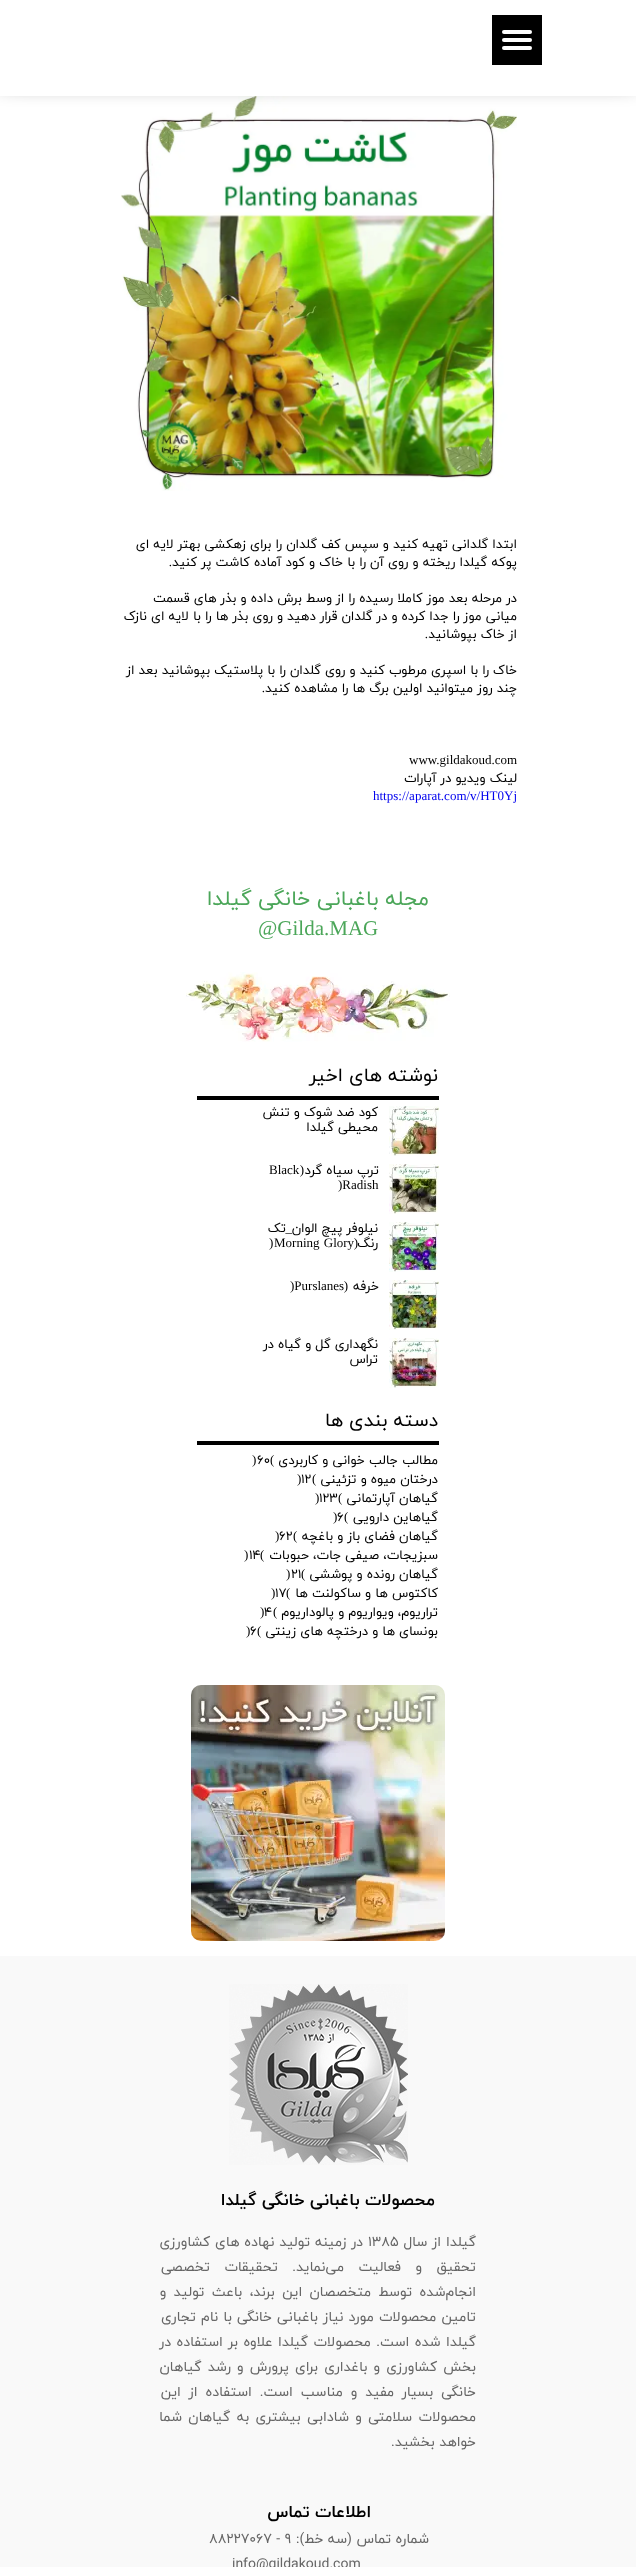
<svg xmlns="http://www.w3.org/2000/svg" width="636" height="2567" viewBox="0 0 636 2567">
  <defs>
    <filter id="blur1" x="-50%" y="-200%" width="200%" height="500%"><feGaussianBlur stdDeviation="12.5"/></filter>
  </defs>
  <rect width="100%" height="100%" fill="#ffffff"/>
  <image x="120" y="96" width="397" height="395" href="img1.png"/>
  <rect x="0" y="-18" width="636" height="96" fill="#000000" filter="url(#blur1)"/>
  <rect x="0" y="0" width="636" height="96" fill="#ffffff"/>
  <rect x="492" y="15" width="50" height="50" fill="#000000"/>
  <rect x="502" y="30" width="30" height="4" rx="2" fill="#ffffff"/>
  <rect x="502" y="38" width="30" height="4" rx="2" fill="#ffffff"/>
  <rect x="502" y="46" width="30" height="4" rx="2" fill="#ffffff"/>
  <text x="517" y="548" font-family="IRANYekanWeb" font-size="13" direction="rtl" fill="#000000">ابتدا گلدانی تهیه کنید و سپس کف گلدان را برای زهکشی بهتر لایه ای</text>
  <text x="517" y="566" font-family="IRANYekanWeb" font-size="13" direction="rtl" fill="#000000">پوکه گیلدا ریخته و روی آن را با خاک و کود آماده کاشت پر کنید</text>
  <text x="172" y="566" font-family="Liberation Serif" font-size="13" direction="rtl" fill="#000000">.</text>
  <text x="517" y="602" font-family="IRANYekanWeb" font-size="13" direction="rtl" fill="#000000">در مرحله بعد موز کاملا رسیده را از وسط برش داده و بذر های قسمت</text>
  <text x="517" y="620" font-family="IRANYekanWeb" font-size="13" direction="rtl" fill="#000000">میانی موز را جدا کرده و در گلدان قرار دهید و روی بذر ها را با لایه ای نازک</text>
  <text x="517" y="638" font-family="IRANYekanWeb" font-size="13" direction="rtl" fill="#000000">از خاک بپوشانید</text>
  <text x="428" y="638" font-family="Liberation Serif" font-size="13" direction="rtl" fill="#000000">.</text>
  <text x="517" y="674" font-family="IRANYekanWeb" font-size="13" direction="rtl" fill="#000000">خاک را با اسپری مرطوب کنید و روی گلدان را با پلاستیک بپوشانید بعد از</text>
  <text x="517" y="692" font-family="IRANYekanWeb" font-size="13" direction="rtl" fill="#000000">چند روز میتوانید اولین برگ ها را مشاهده کنید</text>
  <text x="265" y="692" font-family="Liberation Serif" font-size="13" direction="rtl" fill="#000000">.</text>
  <text x="409" y="764" font-family="Liberation Serif" font-size="13" fill="#000000">www.gildakoud.com</text>
  <text x="517" y="782" font-family="IRANYekanWeb" font-size="13" direction="rtl" fill="#000000">لینک ویدیو در آپارات</text>
  <text x="373" y="800" font-family="Liberation Serif" font-size="13" fill="#0000ee">https://aparat.com/v/HT0Yj</text>
  <text x="429" y="905" font-family="IRANYekanWeb" font-size="21" direction="rtl" fill="#4ba659">مجله باغبانی خانگی گیلدا</text>
  <text x="258" y="935" font-family="Liberation Serif" font-size="21" fill="#4ba659">@Gilda.MAG</text>
  <image x="186" y="972" width="264" height="70" href="img2.png"/>
  <text x="438" y="1081" font-family="IRANYekanWeb" font-size="19" direction="rtl" fill="#000000">نوشته های اخیر</text>
  <rect x="197" y="1096" width="242" height="4" fill="#000000"/>
  <image x="389" y="1106" width="50" height="50" href="img3.png"/>
  <text x="378" y="1116" font-family="IRANYekanWeb" font-size="13" direction="rtl" fill="#000000">کود ضد شوک و تنش</text>
  <text x="378" y="1131" font-family="IRANYekanWeb" font-size="13" direction="rtl" fill="#000000">محیطی گیلدا</text>
  <image x="389" y="1164" width="50" height="50" href="img4.png"/>
  <text x="379" y="1174" font-family="IRANYekanWeb" font-size="13" direction="rtl" fill="#000000">ترپ سیاه گرد</text>
  <text x="304" y="1174" font-family="Liberation Serif" font-size="13" direction="rtl" fill="#000000">(</text>
  <text x="269" y="1174" font-family="Liberation Serif" font-size="13" fill="#000000">Black</text>
  <text x="338" y="1189" font-family="Liberation Serif" font-size="13" fill="#000000">)Radish</text>
  <image x="389" y="1222" width="50" height="50" href="img5.png"/>
  <text x="292" y="1232" font-family="Liberation Serif" font-size="13" direction="rtl" fill="#000000">_</text>
  <text x="378" y="1232" font-family="IRANYekanWeb" font-size="13" direction="rtl" fill="#000000">نیلوفر پیچ الوان</text>
  <text x="286" y="1232" font-family="IRANYekanWeb" font-size="13" direction="rtl" fill="#000000">تک</text>
  <text x="378" y="1247" font-family="IRANYekanWeb" font-size="13" direction="rtl" fill="#000000">رنگ</text>
  <text x="358" y="1247" font-family="Liberation Serif" font-size="13" direction="rtl" fill="#000000">(</text>
  <text x="274" y="1247" word-spacing="1" font-family="Liberation Serif" font-size="13" fill="#000000">Morning Glory</text>
  <text x="269" y="1247" font-family="Liberation Serif" font-size="13" fill="#000000">)</text>
  <image x="389" y="1280" width="50" height="50" href="img6.png"/>
  <text x="379" y="1290" font-family="IRANYekanWeb" font-size="13" direction="rtl" fill="#000000">خرفه</text>
  <text x="348" y="1290" font-family="Liberation Serif" font-size="13" direction="rtl" fill="#000000">(</text>
  <text x="290" y="1290" font-family="Liberation Serif" font-size="13" fill="#000000">)Purslanes</text>
  <image x="389" y="1338" width="50" height="50" href="img7.png"/>
  <text x="378" y="1348" font-family="IRANYekanWeb" font-size="13" direction="rtl" fill="#000000">نگهداری گل و گیاه در</text>
  <text x="378" y="1363" font-family="IRANYekanWeb" font-size="13" direction="rtl" fill="#000000">تراس</text>
  <text x="438" y="1426" font-family="IRANYekanWeb" font-size="19" direction="rtl" fill="#000000">دسته بندی ها</text>
  <rect x="197" y="1441" width="242" height="4" fill="#000000"/>
  <text x="438" y="1464" font-family="IRANYekanWeb" font-size="13" direction="rtl" fill="#000000">مطالب جالب خوانی و کاربردی</text>
  <text x="270" y="1464" font-family="Liberation Serif" font-size="13" fill="#000000">(</text>
  <text x="257" y="1464" font-family="IRANYekanWeb" font-size="13" fill="#000000">۶۰</text>
  <text x="252" y="1464" font-family="Liberation Serif" font-size="13" fill="#000000">)</text>
  <text x="438" y="1483" font-family="IRANYekanWeb" font-size="13" direction="rtl" fill="#000000">درختان میوه و تزئینی</text>
  <text x="312" y="1483" font-family="Liberation Serif" font-size="13" fill="#000000">(</text>
  <text x="301" y="1483" font-family="IRANYekanWeb" font-size="13" fill="#000000">۱۲</text>
  <text x="297" y="1483" font-family="Liberation Serif" font-size="13" fill="#000000">)</text>
  <text x="438" y="1502" font-family="IRANYekanWeb" font-size="13" direction="rtl" fill="#000000">گیاهان آپارتمانی</text>
  <text x="338" y="1502" font-family="Liberation Serif" font-size="13" fill="#000000">(</text>
  <text x="319" y="1502" font-family="IRANYekanWeb" font-size="13" fill="#000000">۱۲۳</text>
  <text x="315" y="1502" font-family="Liberation Serif" font-size="13" fill="#000000">)</text>
  <text x="438" y="1521" font-family="IRANYekanWeb" font-size="13" direction="rtl" fill="#000000">گیاهاین دارویی</text>
  <text x="344" y="1521" font-family="Liberation Serif" font-size="13" fill="#000000">(</text>
  <text x="337" y="1521" font-family="IRANYekanWeb" font-size="13" fill="#000000">۶</text>
  <text x="333" y="1521" font-family="Liberation Serif" font-size="13" fill="#000000">)</text>
  <text x="438" y="1540" font-family="IRANYekanWeb" font-size="13" direction="rtl" fill="#000000">گیاهان فضای باز و باغچه</text>
  <text x="293" y="1540" font-family="Liberation Serif" font-size="13" fill="#000000">(</text>
  <text x="279" y="1540" font-family="IRANYekanWeb" font-size="13" fill="#000000">۶۲</text>
  <text x="275" y="1540" font-family="Liberation Serif" font-size="13" fill="#000000">)</text>
  <text x="438" y="1559" font-family="IRANYekanWeb" font-size="13" direction="rtl" fill="#000000">سبزیجات، صیفی جات، حبوبات</text>
  <text x="260" y="1559" font-family="Liberation Serif" font-size="13" fill="#000000">(</text>
  <text x="249" y="1559" font-family="IRANYekanWeb" font-size="13" fill="#000000">۱۴</text>
  <text x="244" y="1559" font-family="Liberation Serif" font-size="13" fill="#000000">)</text>
  <text x="438" y="1578" font-family="IRANYekanWeb" font-size="13" direction="rtl" fill="#000000">گیاهان رونده و پوششی</text>
  <text x="301" y="1578" font-family="Liberation Serif" font-size="13" fill="#000000">(</text>
  <text x="291" y="1578" font-family="IRANYekanWeb" font-size="13" fill="#000000">۲۱</text>
  <text x="286" y="1578" font-family="Liberation Serif" font-size="13" fill="#000000">)</text>
  <text x="438" y="1597" font-family="IRANYekanWeb" font-size="13" direction="rtl" fill="#000000">کاکتوس ها و ساکولنت ها</text>
  <text x="286" y="1597" font-family="Liberation Serif" font-size="13" fill="#000000">(</text>
  <text x="275" y="1597" font-family="IRANYekanWeb" font-size="13" fill="#000000">۱۷</text>
  <text x="271" y="1597" font-family="Liberation Serif" font-size="13" fill="#000000">)</text>
  <text x="438" y="1616" font-family="IRANYekanWeb" font-size="13" direction="rtl" fill="#000000">تراریوم، ویواریوم و پالوداریوم</text>
  <text x="273" y="1616" font-family="Liberation Serif" font-size="13" fill="#000000">(</text>
  <text x="264" y="1616" font-family="IRANYekanWeb" font-size="13" fill="#000000">۴</text>
  <text x="260" y="1616" font-family="Liberation Serif" font-size="13" fill="#000000">)</text>
  <text x="438" y="1635" font-family="IRANYekanWeb" font-size="13" direction="rtl" fill="#000000">بونسای ها و درختچه های زینتی</text>
  <text x="257" y="1635" font-family="Liberation Serif" font-size="13" fill="#000000">(</text>
  <text x="250" y="1635" font-family="IRANYekanWeb" font-size="13" fill="#000000">۶</text>
  <text x="246" y="1635" font-family="Liberation Serif" font-size="13" fill="#000000">)</text>
  <image x="191" y="1685" width="254" height="256" href="img8.png"/>
  <rect x="0" y="1956" width="636" height="611" fill="#f9f9f9"/>
  <image x="229" y="1984" width="179" height="181" href="img9.png"/>
  <text x="435" y="2205" font-family="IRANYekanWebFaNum" font-size="17" font-weight="bold" direction="rtl" fill="#000000">محصولات باغبانی خانگی گیلدا</text>
  <text x="476" y="2246" word-spacing="0.5" font-family="IRANYekanWebFaNum" font-size="14" direction="rtl" fill="#666666">گیلدا از سال</text>
  <text x="368" y="2246" font-family="IRANYekanWebFaNum" font-size="14" fill="#666666">1385</text>
  <text x="363" y="2246" word-spacing="0.5" font-family="IRANYekanWebFaNum" font-size="14" direction="rtl" fill="#666666">در زمینه‌ تولید نهاده های کشاورزی</text>
  <text x="476" y="2271" word-spacing="10" font-family="IRANYekanWebFaNum" font-size="14" direction="rtl" fill="#666666">تحقیق و فعالیت می‌نماید. تحقیقات تخصصی</text>
  <text x="476" y="2296" word-spacing="3" font-family="IRANYekanWebFaNum" font-size="14" direction="rtl" fill="#666666">انجام‌شده توسط متخصصان این برند، باعث تولید و</text>
  <text x="476" y="2321" word-spacing="0.75" font-family="IRANYekanWebFaNum" font-size="14" direction="rtl" fill="#666666">تامین محصولات مورد نیاز باغبانی خانگی با نام تجاری</text>
  <text x="476" y="2346" word-spacing="1" font-family="IRANYekanWebFaNum" font-size="14" direction="rtl" fill="#666666">گیلدا شده است. محصولات گیلدا علاوه بر استفاده در</text>
  <text x="476" y="2371" word-spacing="1.75" font-family="IRANYekanWebFaNum" font-size="14" direction="rtl" fill="#666666">بخش کشاورزی و باغداری برای پرورش و رشد گیاهان</text>
  <text x="476" y="2396" word-spacing="3.5" font-family="IRANYekanWebFaNum" font-size="14" direction="rtl" fill="#666666">خانگی بسیار مفید و مناسب است. استفاده از این</text>
  <text x="476" y="2421" word-spacing="2" font-family="IRANYekanWebFaNum" font-size="14" direction="rtl" fill="#666666">محصولات سلامتی و شادابی بیشتری به گیاهان شما</text>
  <text x="476" y="2446" font-family="IRANYekanWebFaNum" font-size="14" direction="rtl" fill="#666666">خواهد بخشید.</text>
  <text x="371" y="2517" font-family="IRANYekanWebFaNum" font-size="17" font-weight="bold" direction="rtl" fill="#000000">اطلاعات تماس</text>
  <text x="429" y="2543" font-family="IRANYekanWebFaNum" font-size="14" direction="rtl" fill="#666666">شماره تماس (سه خط):</text>
  <text x="209" y="2543" font-family="IRANYekanWebFaNum" font-size="14" fill="#666666">۸۸۲۲۷۰۶۷ - ۹</text>
  <text x="232" y="2568" font-family="IRANYekanWebFaNum" font-size="14" fill="#666666">info@gildakoud.com</text>
</svg>
